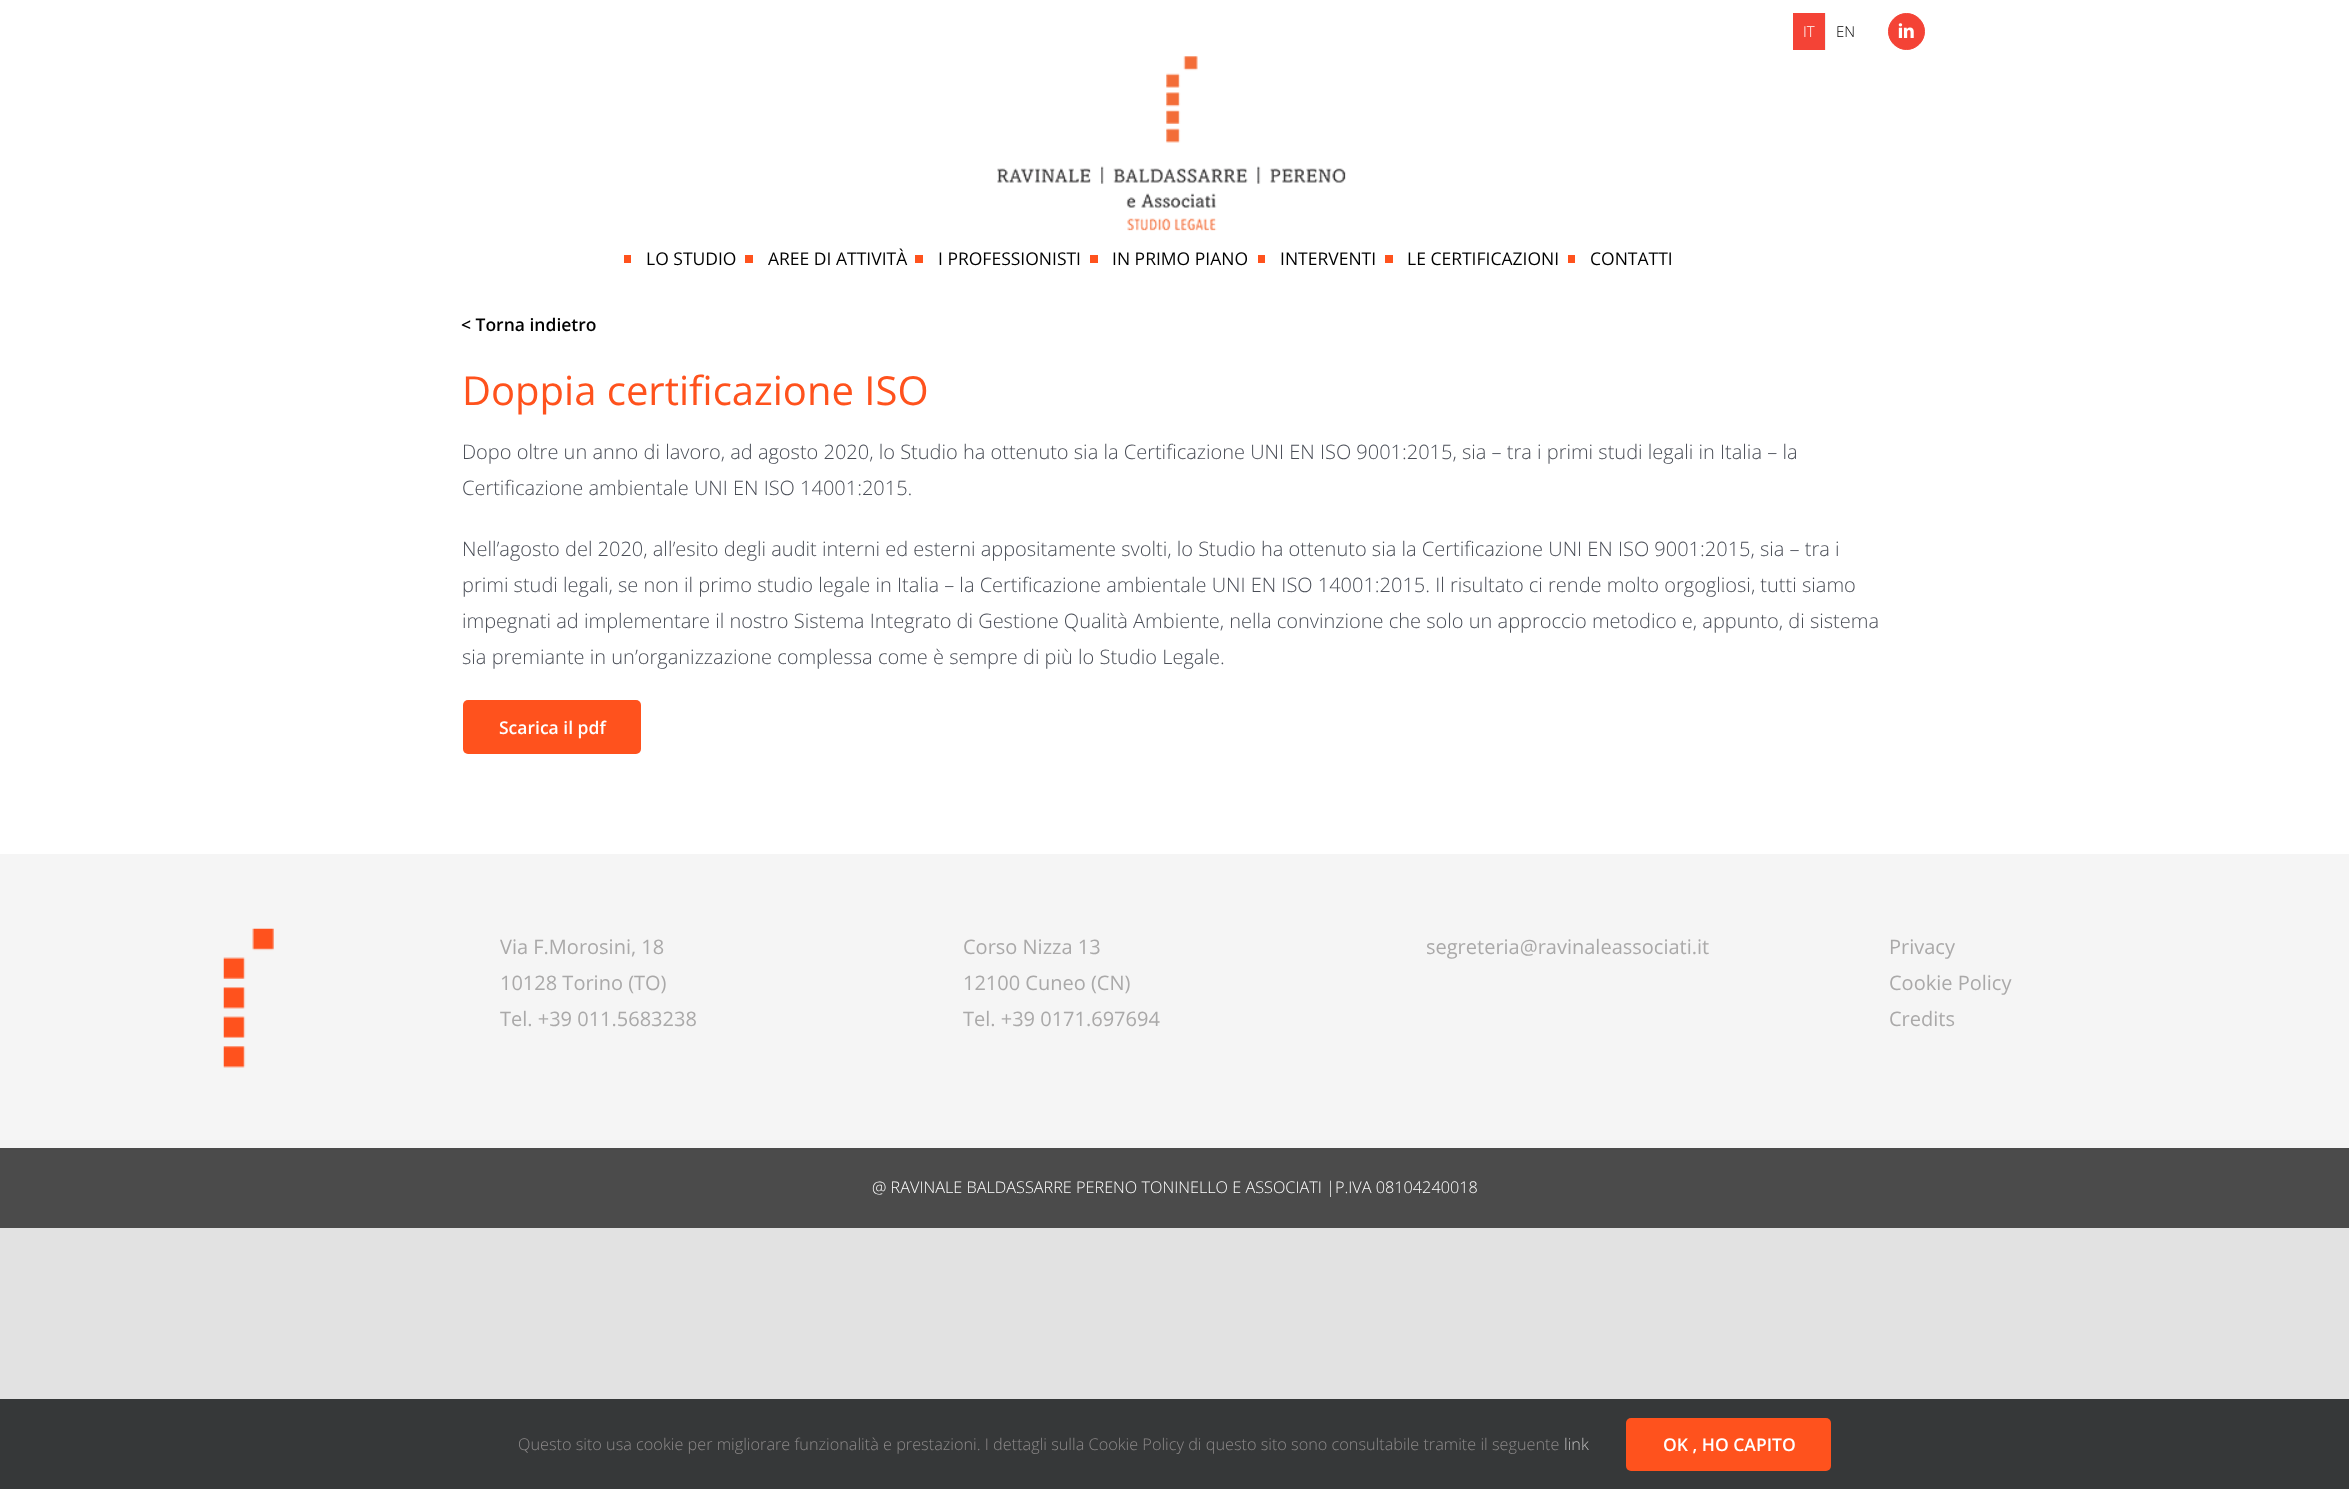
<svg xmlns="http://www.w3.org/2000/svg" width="2349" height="1489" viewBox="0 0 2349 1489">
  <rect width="100%" height="100%" fill="#e2e2e2"/>
  <rect x="0" y="0" width="2349" height="854" fill="#ffffff"/>
  <rect x="1793" y="13" width="32" height="37" fill="#f44336"/>
  <text x="1803" y="37" font-family="Open Sans" font-size="15" font-weight="300" fill="#ffffff">IT</text>
  <rect x="1825" y="13" width="1" height="37" fill="#f0f0f0"/>
  <text x="1836" y="37" font-family="Open Sans" font-size="15" font-weight="300" fill="#000000">EN</text>
  <circle cx="1906.5" cy="31.5" r="18" fill="#f44336" stroke="#f44336"/>
  <image x="1898" y="23" width="16" height="15" href="img1.png"/>
  <image x="997" y="56" width="349" height="175" href="img2.png"/>
  <rect x="624" y="255" width="7" height="8" fill="#ff521d"/>
  <text x="646" y="265" font-family="Open Sans" font-size="17.5" fill="#000000">LO STUDIO</text>
  <rect x="745" y="255" width="8" height="8" fill="#ff521d"/>
  <text x="768" y="265" font-family="Open Sans" font-size="17.5" fill="#000000">AREE DI ATTIVITÀ</text>
  <rect x="915" y="255" width="8" height="8" fill="#ff521d"/>
  <text x="938" y="265" font-family="Open Sans" font-size="17.5" fill="#000000">I PROFESSIONISTI</text>
  <rect x="1090" y="255" width="8" height="8" fill="#ff521d"/>
  <text x="1112" y="265" font-family="Open Sans" font-size="17.5" fill="#000000">IN PRIMO PIANO</text>
  <rect x="1258" y="255" width="7" height="8" fill="#ff521d"/>
  <text x="1280" y="265" font-family="Open Sans" font-size="17.5" fill="#000000">INTERVENTI</text>
  <rect x="1385" y="255" width="8" height="8" fill="#ff521d"/>
  <text x="1407" y="265" font-family="Open Sans" font-size="17.5" fill="#000000">LE CERTIFICAZIONI</text>
  <rect x="1568" y="255" width="7" height="8" fill="#ff521d"/>
  <text x="1590" y="265" font-family="Open Sans" font-size="17.5" fill="#000000">CONTATTI</text>
  <text x="461" y="331" font-family="Open Sans" font-size="17.5" font-weight="600" fill="#000000">&lt; Torna indietro</text>
  <text x="462" y="405" font-family="Open Sans" font-size="40" fill="#ff521d">Doppia certificazione ISO</text>
  <text x="462" y="459" font-family="Open Sans" font-size="20" font-weight="300" fill="#4a4e57">Dopo oltre un anno di lavoro, ad agosto 2020, lo Studio ha ottenuto sia la Certificazione UNI EN ISO 9001:2015, sia – tra i primi studi legali in Italia – la</text>
  <text x="462" y="495" font-family="Open Sans" font-size="20" font-weight="300" fill="#4a4e57">Certificazione ambientale UNI EN ISO 14001:2015.</text>
  <text x="462" y="556" font-family="Open Sans" font-size="20" font-weight="300" fill="#4a4e57">Nell’agosto del 2020, all’esito degli audit interni ed esterni appositamente svolti, lo Studio ha ottenuto sia la Certificazione UNI EN ISO 9001:2015, sia – tra i</text>
  <text x="462" y="592" font-family="Open Sans" font-size="20" font-weight="300" fill="#4a4e57">primi studi legali, se non il primo studio legale in Italia – la Certificazione ambientale UNI EN ISO 14001:2015. Il risultato ci rende molto orgogliosi, tutti siamo</text>
  <text x="462" y="628" font-family="Open Sans" font-size="20" font-weight="300" fill="#4a4e57">impegnati ad implementare il nostro Sistema Integrato di Gestione Qualità Ambiente, nella convinzione che solo un approccio metodico e, appunto, di sistema</text>
  <text x="462" y="664" font-family="Open Sans" font-size="20" font-weight="300" fill="#4a4e57">sia premiante in un’organizzazione complessa come è sempre di più lo Studio Legale.</text>
  <rect x="463" y="700" width="178" height="54" rx="5" fill="#ff521d"/>
  <text x="499" y="734" font-family="Open Sans" font-size="17.5" font-weight="600" fill="#ffffff">Scarica il pdf</text>
  <rect x="0" y="854" width="2349" height="294" fill="#f5f5f5"/>
  <image x="223" y="928" width="51" height="140" href="img3.png"/>
  <text x="500" y="954" font-family="Open Sans" font-size="20" fill="#aaa9a9">Via F.Morosini, 18</text>
  <text x="500" y="990" font-family="Open Sans" font-size="20" fill="#aaa9a9">10128 Torino (TO)</text>
  <text x="500" y="1026" font-family="Open Sans" font-size="20" fill="#aaa9a9">Tel. +39 011.5683238</text>
  <text x="963" y="954" font-family="Open Sans" font-size="20" fill="#aaa9a9">Corso Nizza 13</text>
  <text x="963" y="990" font-family="Open Sans" font-size="20" fill="#aaa9a9">12100 Cuneo (CN)</text>
  <text x="963" y="1026" font-family="Open Sans" font-size="20" fill="#aaa9a9">Tel. +39 0171.697694</text>
  <text x="1426" y="954" font-family="Open Sans" font-size="20" fill="#aaa9a9">segreteria@ravinaleassociati.it</text>
  <text x="1889" y="954" font-family="Open Sans" font-size="20" fill="#aaa9a9">Privacy</text>
  <text x="1889" y="990" font-family="Open Sans" font-size="20" fill="#aaa9a9">Cookie Policy</text>
  <text x="1889" y="1026" font-family="Open Sans" font-size="20" fill="#aaa9a9">Credits</text>
  <rect x="0" y="1148" width="2349" height="80" fill="#4b4b4b"/>
  <text x="872" y="1193" font-family="Open Sans" font-size="16.25" font-weight="300" fill="#ffffff">@ RAVINALE BALDASSARRE PERENO TONINELLO E ASSOCIATI |P.IVA 08104240018</text>
  <rect x="0" y="1399" width="2349" height="90" fill="#363839"/>
  <text x="518" y="1450" font-family="Open Sans" font-size="16.25" font-weight="300" fill="#8c8989">Questo sito usa cookie per migliorare funzionalità e prestazioni. I dettagli sulla Cookie Policy di questo sito sono consultabile tramite il seguente</text>
  <text x="1564" y="1450" font-family="Open Sans" font-size="16.25" font-weight="300" fill="#bfbfbf">link</text>
  <rect x="1626" y="1418" width="205" height="53" rx="5" fill="#ff521d"/>
  <text x="1663" y="1451" font-family="Open Sans" font-size="17.5" font-weight="600" fill="#ffffff">OK , HO CAPITO</text>
</svg>
